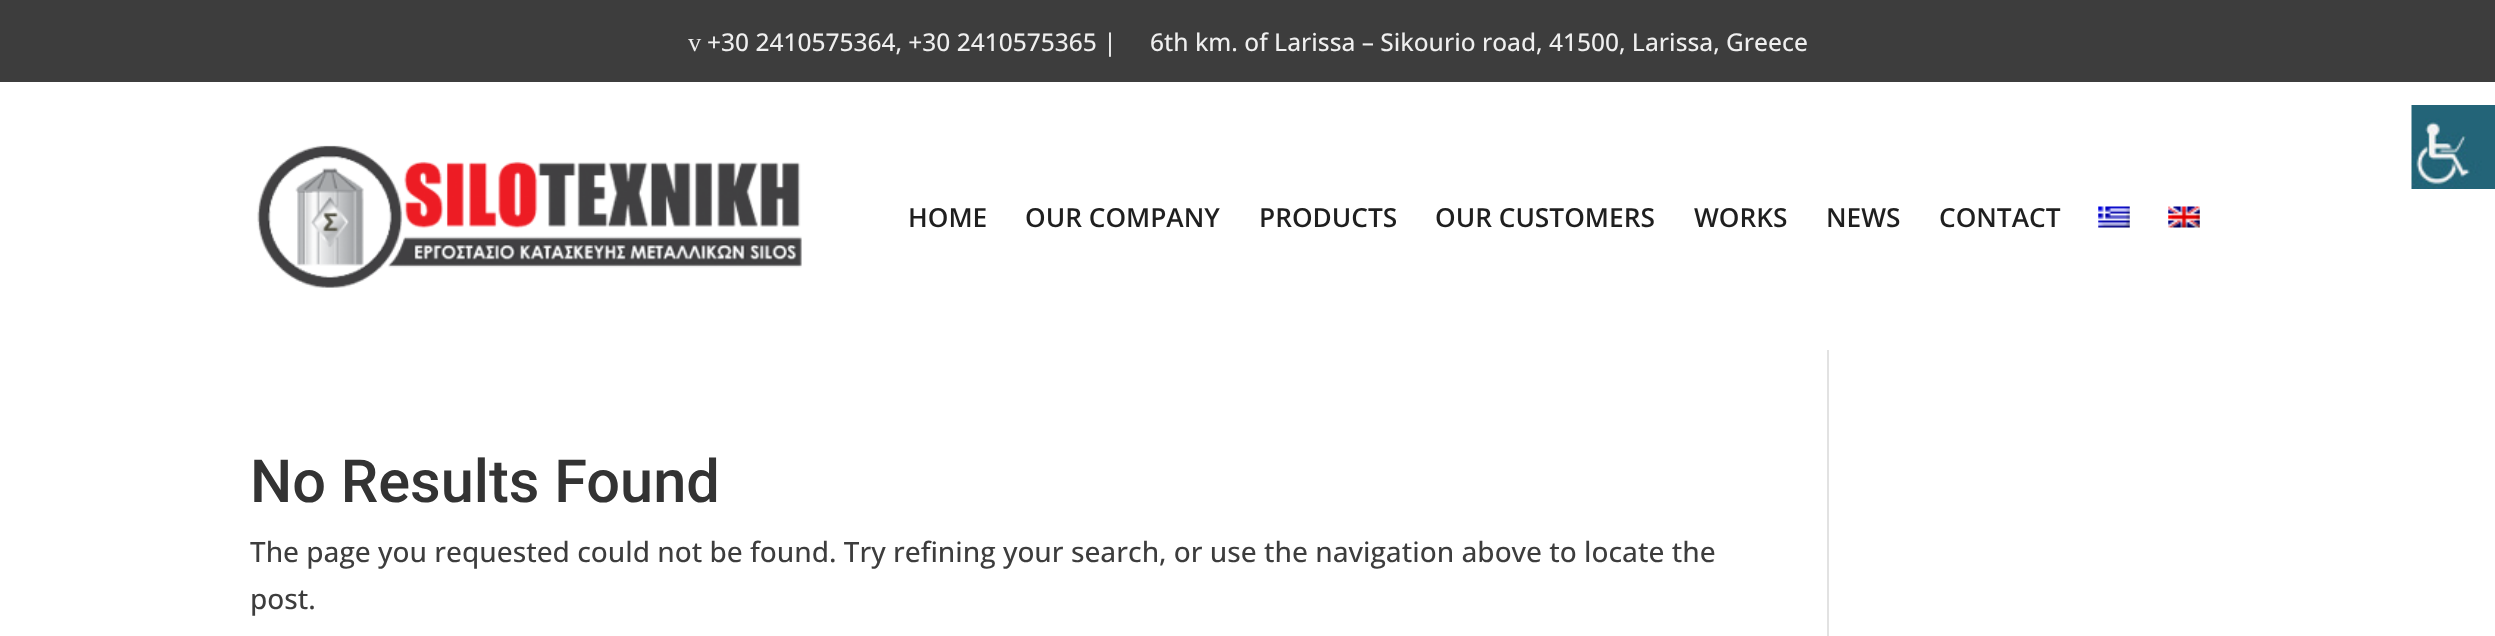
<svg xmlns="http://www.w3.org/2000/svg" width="2495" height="636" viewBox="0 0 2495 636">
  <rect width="100%" height="100%" fill="#ffffff"/>
  <rect x="0" y="0" width="2495" height="82" fill="#3d3d3d"/>
  <text x="688" y="51" font-family="Liberation Serif" font-size="26.25" fill="#efefef">v</text>
  <text x="707" y="51" font-family="Open Sans" font-size="24.5" font-weight="500" fill="#efefef">+30 2410575364, +30 2410575365 |</text>
  <text x="1150" y="51" font-family="Open Sans" font-size="24.5" font-weight="500" fill="#efefef">6th km. of Larissa – Sikourio road, 41500, Larissa, Greece</text>
  <image x="257" y="145" width="545" height="143" href="img1.png"/>
  <text x="908" y="227" font-family="Open Sans" font-size="26.25" font-weight="600" fill="#1f1f1f">HOME</text>
  <text x="1025" y="227" font-family="Open Sans" font-size="26.25" font-weight="600" fill="#1f1f1f">OUR COMPANY</text>
  <text x="1259" y="227" font-family="Open Sans" font-size="26.25" font-weight="600" fill="#1f1f1f">PRODUCTS</text>
  <text x="1435" y="227" font-family="Open Sans" font-size="26.25" font-weight="600" fill="#1f1f1f">OUR CUSTOMERS</text>
  <text x="1694" y="227" font-family="Open Sans" font-size="26.25" font-weight="600" fill="#1f1f1f">WORKS</text>
  <text x="1826" y="227" font-family="Open Sans" font-size="26.25" font-weight="600" fill="#1f1f1f">NEWS</text>
  <text x="1939" y="227" font-family="Open Sans" font-size="26.25" font-weight="600" fill="#1f1f1f">CONTACT</text>
  <image x="2098" y="206" width="32" height="22" href="img2.png"/>
  <image x="2168" y="206" width="32" height="22" href="img3.png"/>
  <text x="250" y="502" font-family="Roboto" font-size="59.5" font-weight="500" fill="#333333">No Results Found</text>
  <text x="250" y="562" font-family="Open Sans" font-size="28" font-weight="500" fill="#3d3d3d">The page you requested could not be found. Try refining your search, or use the navigation above to locate the</text>
  <text x="250" y="609" font-family="Open Sans" font-size="28" font-weight="500" fill="#3d3d3d">post.</text>
  <rect x="1827" y="350" width="2" height="286" fill="#e2e2e2"/>
  <image x="2411" y="105" width="84" height="84" href="img4.png"/>
</svg>
